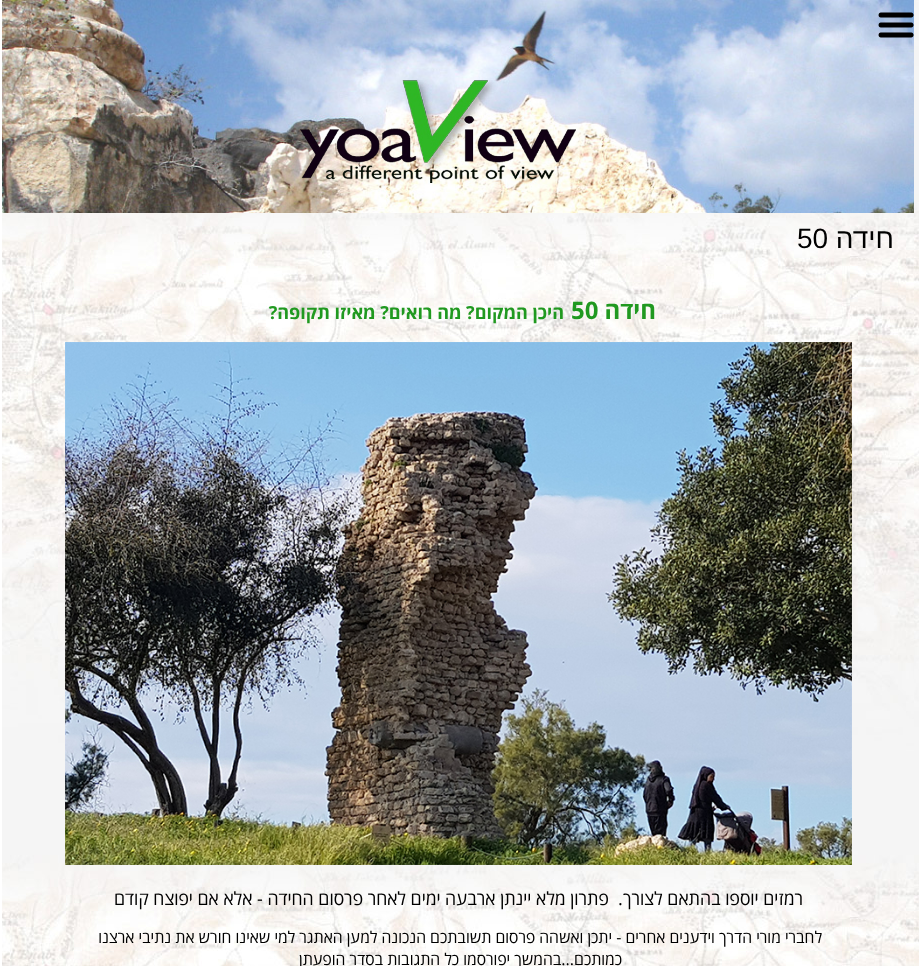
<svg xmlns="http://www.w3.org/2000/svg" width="921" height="966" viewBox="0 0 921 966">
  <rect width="100%" height="100%" fill="#ffffff"/>
  <image x="2" y="0" width="917" height="966" href="img3.png"/>
  <image x="2" y="0" width="912" height="213" href="img4.png"/>
  <image x="878" y="12" width="36" height="26" href="img1.png"/>
  <image x="300" y="80" width="276" height="103" href="img2.png"/>
  <text x="894" y="248" font-family="Liberation Sans" font-size="28" direction="rtl" fill="#000000">חידה</text>
  <text x="797" y="248" font-family="Liberation Sans" font-size="28" fill="#000000">50</text>
  <text x="656" y="319" font-family="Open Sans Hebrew" font-size="24" font-weight="bold" direction="rtl" fill="#209920">חידה</text>
  <text x="571" y="319" font-family="Open Sans Hebrew" font-size="24" font-weight="bold" fill="#209920">50</text>
  <text x="564" y="319" font-family="Open Sans Hebrew" font-size="18" font-weight="bold" direction="rtl" fill="#209920">היכן המקום? מה רואים? מאיזו תקופה?</text>
  <image x="65" y="342" width="787" height="523" href="img5.png"/>
  <text x="803" y="905" font-family="Open Sans Hebrew" font-size="18" direction="rtl" fill="#000000" xml:space="preserve">רמזים יוספו בהתאם לצורך.  פתרון מלא יינתן ארבעה ימים לאחר פרסום החידה - אלא אם יפוצח קודם</text>
  <text x="822" y="943" font-family="Open Sans Hebrew" font-size="16" direction="rtl" fill="#000000">לחברי מורי הדרך וידענים אחרים - יתכן ואשהה פרסום תשובתכם הנכונה למען האתגר למי שאינו חורש את נתיבי ארצנו</text>
  <text x="622" y="965" font-family="Open Sans Hebrew" font-size="16" direction="rtl" fill="#000000">כמותכם...בהמשך יפורסמו כל התגובות בסדר הופעתן</text>
</svg>
